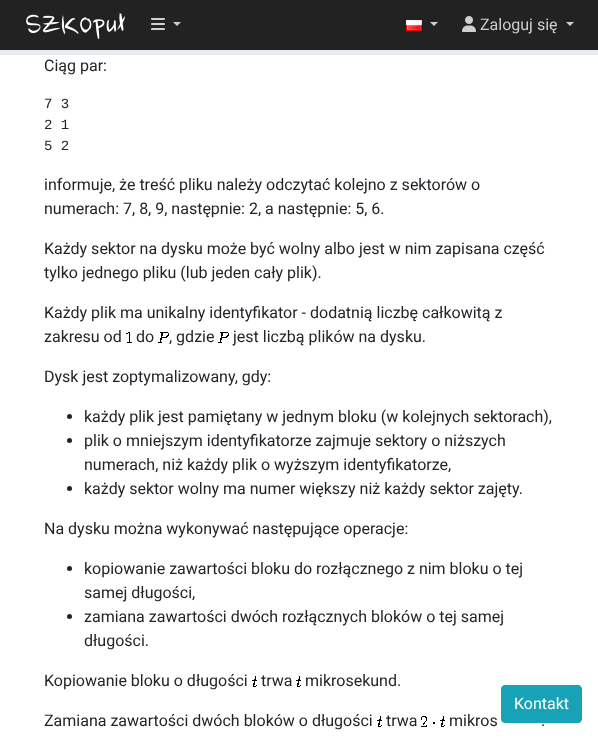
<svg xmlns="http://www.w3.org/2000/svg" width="598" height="739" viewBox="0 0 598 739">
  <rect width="100%" height="100%" fill="#ffffff"/>
  <rect x="0" y="0" width="598" height="50" fill="#222222"/>
  <image x="26" y="13" width="99" height="26" href="img1.png"/>
  <image x="151" y="18" width="14" height="12" href="img2.png"/>
  <path d="M173 22H181L177 26Z" fill="#cfcfcf"/>
  <image x="406" y="20" width="16" height="11" href="img3.png"/>
  <path d="M430 22H438L434 26Z" fill="#cfcfcf"/>
  <image x="462" y="16" width="14" height="16" href="img4.png"/>
  <text x="480" y="30" font-family="Roboto" font-size="16" fill="#cfcfcf">Zaloguj się</text>
  <path d="M566 22H574L570 26Z" fill="#cfcfcf"/>
  <rect x="0" y="50" width="598" height="5" fill="#e9ecef"/>
  <text x="44" y="71" font-family="Roboto" font-size="16" fill="#212529">Ciąg par:</text>
  <text x="44" y="108" font-family="Liberation Mono" font-size="14" fill="#212529">7 3</text>
  <text x="44" y="129" font-family="Liberation Mono" font-size="14" fill="#212529">2 1</text>
  <text x="44" y="150" font-family="Liberation Mono" font-size="14" fill="#212529">5 2</text>
  <text x="44" y="190" font-family="Roboto" font-size="16" fill="#212529">informuje, że treść pliku należy odczytać kolejno z sektorów o</text>
  <text x="44" y="214" font-family="Roboto" font-size="16" fill="#212529">numerach: 7, 8, 9, następnie: 2, a następnie: 5, 6.</text>
  <text x="44" y="254" font-family="Roboto" font-size="16" fill="#212529">Każdy sektor na dysku może być wolny albo jest w nim zapisana część</text>
  <text x="44" y="278" font-family="Roboto" font-size="16" fill="#212529">tylko jednego pliku (lub jeden cały plik).</text>
  <text x="44" y="318" font-family="Roboto" font-size="16" fill="#212529">Każdy plik ma unikalny identyfikator - dodatnią liczbę całkowitą z</text>
  <text x="44" y="342" font-family="Roboto" font-size="16" fill="#212529">zakresu od</text>
  <image x="126" y="332" width="6" height="11" href="img5.png"/>
  <text x="136" y="342" font-family="Roboto" font-size="16" fill="#212529">do</text>
  <image x="158" y="332" width="11" height="11" href="img6.png"/>
  <text x="169" y="342" font-family="Roboto" font-size="16" fill="#212529">, gdzie</text>
  <image x="218" y="332" width="11" height="11" href="img6.png"/>
  <text x="233" y="342" font-family="Roboto" font-size="16" fill="#212529">jest liczbą plików na dysku.</text>
  <text x="44" y="382" font-family="Roboto" font-size="16" fill="#212529">Dysk jest zoptymalizowany, gdy:</text>
  <circle cx="69.5" cy="416.5" r="2.5" fill="#212529"/>
  <text x="84" y="422" font-family="Roboto" font-size="16" fill="#212529">każdy plik jest pamiętany w jednym bloku (w kolejnych sektorach),</text>
  <circle cx="69.5" cy="440.5" r="2.5" fill="#212529"/>
  <text x="84" y="446" font-family="Roboto" font-size="16" fill="#212529">plik o mniejszym identyfikatorze zajmuje sektory o niższych</text>
  <text x="84" y="470" font-family="Roboto" font-size="16" fill="#212529">numerach, niż każdy plik o wyższym identyfikatorze,</text>
  <circle cx="69.5" cy="488.5" r="2.5" fill="#212529"/>
  <text x="84" y="494" font-family="Roboto" font-size="16" fill="#212529">każdy sektor wolny ma numer większy niż każdy sektor zajęty.</text>
  <text x="44" y="534" font-family="Roboto" font-size="16" fill="#212529">Na dysku można wykonywać następujące operacje:</text>
  <circle cx="69.5" cy="568.5" r="2.5" fill="#212529"/>
  <text x="84" y="574" font-family="Roboto" font-size="16" fill="#212529">kopiowanie zawartości bloku do rozłącznego z nim bloku o tej</text>
  <text x="84" y="598" font-family="Roboto" font-size="16" fill="#212529">samej długości,</text>
  <circle cx="69.5" cy="616.5" r="2.5" fill="#212529"/>
  <text x="84" y="622" font-family="Roboto" font-size="16" fill="#212529">zamiana zawartości dwóch rozłącznych bloków o tej samej</text>
  <text x="84" y="646" font-family="Roboto" font-size="16" fill="#212529">długości.</text>
  <text x="44" y="686" font-family="Roboto" font-size="16" fill="#212529">Kopiowanie bloku o długości</text>
  <image x="252" y="676" width="5" height="11" href="img7.png"/>
  <text x="261" y="686" font-family="Roboto" font-size="16" fill="#212529">trwa</text>
  <image x="296" y="676" width="5" height="11" href="img7.png"/>
  <text x="305" y="686" font-family="Roboto" font-size="16" fill="#212529">mikrosekund.</text>
  <text x="44" y="726" font-family="Roboto" font-size="16" fill="#212529">Zamiana zawartości dwóch bloków o długości</text>
  <image x="377" y="716" width="5" height="11" href="img7.png"/>
  <text x="386" y="726" font-family="Roboto" font-size="16" fill="#212529">trwa</text>
  <image x="421" y="716" width="24" height="11" href="img8.png"/>
  <text x="449" y="726" font-family="Roboto" font-size="16" fill="#212529">mikros</text>
  <text x="541" y="726" font-family="Roboto" font-size="16" fill="#212529">.</text>
  <rect x="501.5" y="685.5" width="80" height="37" rx="3.5" fill="#17a2b8" stroke="#17a2b8"/>
  <text x="514" y="709" font-family="Roboto" font-size="16" fill="#ffffff">Kontakt</text>
</svg>
